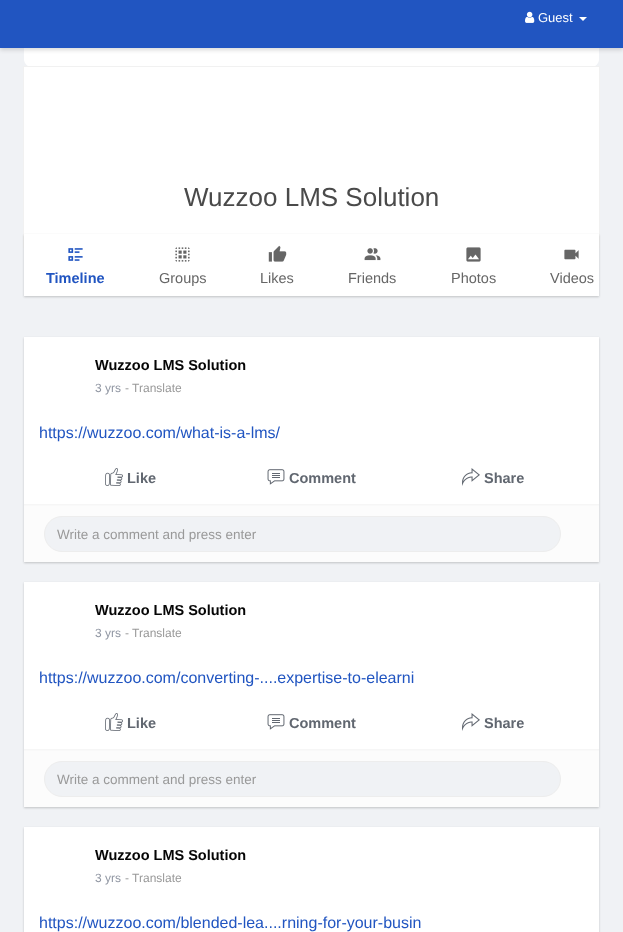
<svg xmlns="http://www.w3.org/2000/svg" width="623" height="932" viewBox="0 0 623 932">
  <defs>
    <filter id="blur1" x="-50%" y="-200%" width="200%" height="500%"><feGaussianBlur stdDeviation="2"/></filter>
    <filter id="blur2" x="-50%" y="-200%" width="200%" height="500%"><feGaussianBlur stdDeviation="1"/></filter>
  </defs>
  <rect width="100%" height="100%" fill="#f0f2f5"/>
  <path d="M24 45H599V59C599 63.5 595.5 67 591 67H32C27.5 67 24 63.5 24 59Z" fill="#ffffff"/>
  <rect x="0" y="2" width="623" height="48" fill="#000000" fill-opacity="0.15" filter="url(#blur1)"/>
  <rect x="0" y="0" width="623" height="48" fill="#2155c1"/>
  <image x="525" y="11" width="10" height="12" href="img1.png"/>
  <text x="538" y="22" font-family="Liberation Sans" font-size="13" fill="#ffffff">Guest</text>
  <path d="M579 17H587L583 21Z" fill="#ffffff"/>
  <rect x="23.5" y="66.5" width="576" height="181" fill="none" stroke="#f1f1f1"/>
  <rect x="24" y="67" width="575" height="167" fill="#ffffff"/>
  <text x="184" y="206" font-family="Liberation Sans" font-size="26" fill="#4a4a4a">Wuzzoo LMS Solution</text>
  <rect x="24" y="235" width="575" height="62" fill="#000000" fill-opacity="0.2" filter="url(#blur2)"/>
  <rect x="24" y="234" width="575" height="62" fill="#ffffff"/>
  <image x="68" y="248" width="15" height="13" href="img2.png"/>
  <text x="46" y="283" font-family="Liberation Sans" font-size="14.5" font-weight="bold" fill="#2155c1">Timeline</text>
  <image x="175" y="247" width="15" height="15" href="img3.png"/>
  <text x="159" y="283" font-family="Liberation Sans" font-size="14.5" fill="#666666">Groups</text>
  <image x="268" y="245" width="19" height="17" href="img4.png"/>
  <text x="260" y="283" font-family="Liberation Sans" font-size="14.5" fill="#666666">Likes</text>
  <image x="364" y="248" width="17" height="13" href="img5.png"/>
  <text x="348" y="283" font-family="Liberation Sans" font-size="14.5" fill="#666666">Friends</text>
  <image x="466" y="247" width="15" height="15" href="img6.png"/>
  <text x="451" y="283" font-family="Liberation Sans" font-size="14.5" fill="#666666">Photos</text>
  <image x="564" y="249" width="15" height="11" href="img7.png"/>
  <text x="550" y="283" font-family="Liberation Sans" font-size="14.5" fill="#666666">Videos</text>
  <rect x="24" y="338" width="575" height="225" fill="#000000" fill-opacity="0.2" filter="url(#blur2)"/>
  <rect x="24" y="337" width="575" height="167" fill="#ffffff"/>
  <text x="95" y="370" font-family="Liberation Sans" font-size="14.5" font-weight="bold" fill="#050505">Wuzzoo LMS Solution</text>
  <text x="95" y="392" font-family="Liberation Sans" font-size="12" fill="#9197a3">3 yrs</text>
  <text x="125" y="392" font-family="Liberation Sans" font-size="12" fill="#999999">- Translate</text>
  <text x="39" y="438" font-family="Liberation Sans" font-size="16" fill="#2155c1">https://wuzzoo.com/what-is-a-lms/</text>
  <image x="105" y="468" width="18" height="18" href="img8.png"/>
  <text x="127" y="483" font-family="Liberation Sans" font-size="14.5" font-weight="bold" fill="#616770">Like</text>
  <image x="267" y="469" width="18" height="16" href="img9.png"/>
  <text x="289" y="483" font-family="Liberation Sans" font-size="14.5" font-weight="bold" fill="#616770">Comment</text>
  <image x="462" y="468" width="18" height="18" href="img10.png"/>
  <text x="484" y="483" font-family="Liberation Sans" font-size="14.5" font-weight="bold" fill="#616770">Share</text>
  <rect x="24" y="506" width="575" height="56" fill="#fcfcfc"/>
  <rect x="24" y="504" width="575" height="1" fill="#f6f6f6"/>
  <rect x="24" y="505" width="575" height="1" fill="#f9f9f9"/>
  <rect x="44.5" y="516.5" width="516" height="35" rx="17.5" fill="#f0f2f5" stroke="#ededed"/>
  <text x="57" y="539" font-family="Liberation Sans" font-size="13.5" fill="#999999">Write a comment and press enter</text>
  <rect x="24" y="583" width="575" height="225" fill="#000000" fill-opacity="0.2" filter="url(#blur2)"/>
  <rect x="24" y="582" width="575" height="167" fill="#ffffff"/>
  <text x="95" y="615" font-family="Liberation Sans" font-size="14.5" font-weight="bold" fill="#050505">Wuzzoo LMS Solution</text>
  <text x="95" y="637" font-family="Liberation Sans" font-size="12" fill="#9197a3">3 yrs</text>
  <text x="125" y="637" font-family="Liberation Sans" font-size="12" fill="#999999">- Translate</text>
  <text x="39" y="683" font-family="Liberation Sans" font-size="16" fill="#2155c1">https://wuzzoo.com/converting-....expertise-to-elearni</text>
  <image x="105" y="713" width="18" height="18" href="img8.png"/>
  <text x="127" y="728" font-family="Liberation Sans" font-size="14.5" font-weight="bold" fill="#616770">Like</text>
  <image x="267" y="714" width="18" height="16" href="img9.png"/>
  <text x="289" y="728" font-family="Liberation Sans" font-size="14.5" font-weight="bold" fill="#616770">Comment</text>
  <image x="462" y="713" width="18" height="18" href="img10.png"/>
  <text x="484" y="728" font-family="Liberation Sans" font-size="14.5" font-weight="bold" fill="#616770">Share</text>
  <rect x="24" y="751" width="575" height="56" fill="#fcfcfc"/>
  <rect x="24" y="749" width="575" height="1" fill="#f6f6f6"/>
  <rect x="24" y="750" width="575" height="1" fill="#f9f9f9"/>
  <rect x="44.5" y="761.5" width="516" height="35" rx="17.5" fill="#f0f2f5" stroke="#ededed"/>
  <text x="57" y="784" font-family="Liberation Sans" font-size="13.5" fill="#999999">Write a comment and press enter</text>
  <rect x="24" y="828" width="575" height="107" fill="#000000" fill-opacity="0.2" filter="url(#blur2)"/>
  <rect x="24" y="827" width="575" height="105" fill="#ffffff"/>
  <text x="95" y="860" font-family="Liberation Sans" font-size="14.5" font-weight="bold" fill="#050505">Wuzzoo LMS Solution</text>
  <text x="95" y="882" font-family="Liberation Sans" font-size="12" fill="#9197a3">3 yrs</text>
  <text x="125" y="882" font-family="Liberation Sans" font-size="12" fill="#999999">- Translate</text>
  <text x="39" y="928" font-family="Liberation Sans" font-size="16" fill="#2155c1">https://wuzzoo.com/blended-lea....rning-for-your-busin</text>
</svg>
